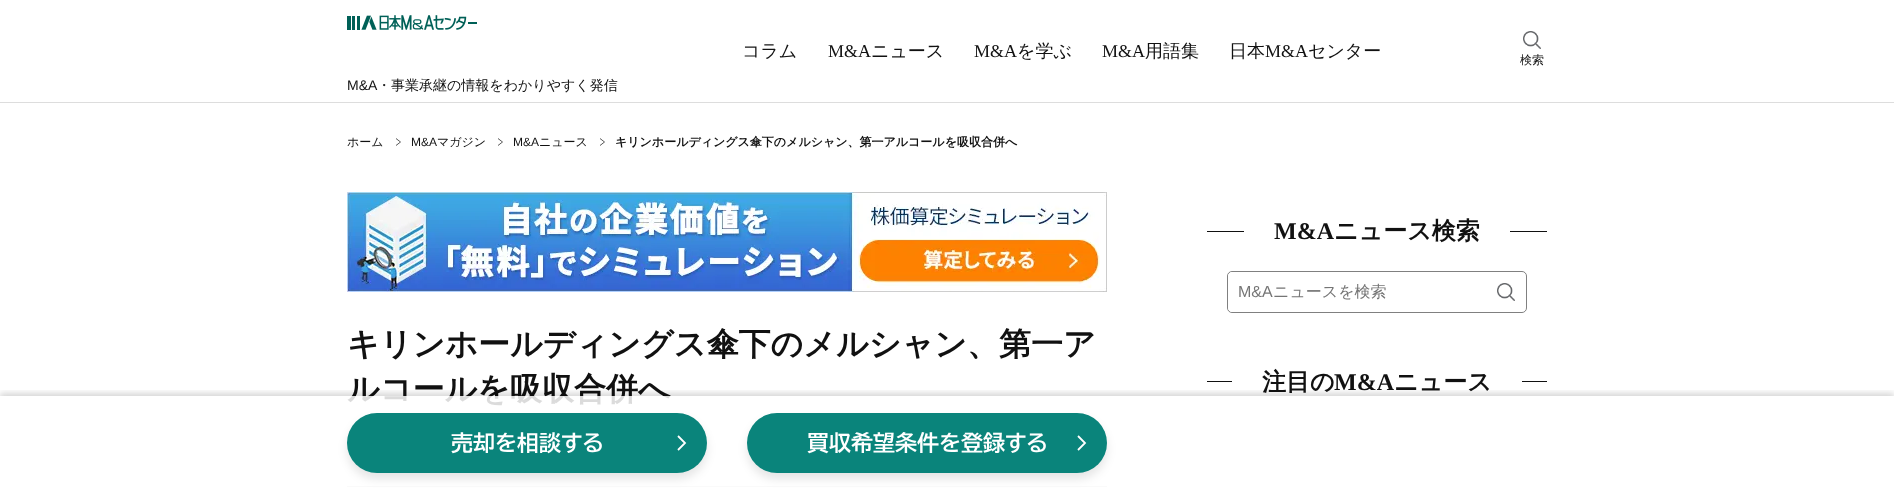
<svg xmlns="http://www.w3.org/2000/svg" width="1894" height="490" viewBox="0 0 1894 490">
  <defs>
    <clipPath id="clip1"><rect x="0" y="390" width="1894" height="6"/></clipPath>
    <filter id="blur1" x="-50%" y="-200%" width="200%" height="500%"><feGaussianBlur stdDeviation="3"/></filter>
    <filter id="blur2" x="-50%" y="-200%" width="200%" height="500%"><feGaussianBlur stdDeviation="5"/></filter>
  </defs>
  <rect width="100%" height="100%" fill="#ffffff"/>
  <rect x="0" y="102" width="1894" height="1" fill="#dddddd"/>
  <text x="742" y="57" font-family="WenQuanYi Zen Hei" font-size="18" font-weight="500" fill="#111111">コラム</text>
  <text x="828" y="57" font-family="Liberation Serif" font-size="18" fill="#111111">M&amp;A</text>
  <text x="871" y="57" font-family="WenQuanYi Zen Hei" font-size="18" font-weight="500" fill="#111111">ニュース</text>
  <text x="974" y="57" font-family="Liberation Serif" font-size="18" fill="#111111">M&amp;A</text>
  <text x="1017" y="57" font-family="WenQuanYi Zen Hei" font-size="18" font-weight="500" fill="#111111">を学ぶ</text>
  <text x="1102" y="57" font-family="Liberation Serif" font-size="18" fill="#111111">M&amp;A</text>
  <text x="1145" y="57" font-family="WenQuanYi Zen Hei" font-size="18" font-weight="500" fill="#111111">用語集</text>
  <text x="1229" y="57" font-family="WenQuanYi Zen Hei" font-size="18" font-weight="500" fill="#111111">日本</text>
  <text x="1265" y="57" font-family="Liberation Serif" font-size="18" fill="#111111">M&amp;A</text>
  <text x="1308" y="57" font-family="WenQuanYi Zen Hei" font-size="18" font-weight="500" fill="#111111">センター</text>
  <image x="1523" y="31" width="18" height="18" href="img1.png"/>
  <text x="1520" y="64" font-family="WenQuanYi Zen Hei" font-size="12" font-weight="500" fill="#111111">検索</text>
  <image x="347" y="15" width="130" height="15" href="img2.png"/>
  <text x="347" y="90" font-family="Liberation Sans" font-size="14" fill="#111111">M&amp;A</text>
  <text x="377" y="90" font-family="WenQuanYi Zen Hei" font-size="14" font-weight="500" fill="#111111">・事業承継の情報をわかりやすく発信</text>
  <path d="M396 138.5L400.5 142L396 145.5" fill="none" stroke="#111111" stroke-width="0.7"/>
  <text x="347" y="146" font-family="WenQuanYi Zen Hei" font-size="12" font-weight="500" fill="#111111">ホーム</text>
  <path d="M498 138.5L502.5 142L498 145.5" fill="none" stroke="#111111" stroke-width="0.7"/>
  <text x="411" y="146" font-family="Liberation Sans" font-size="12" fill="#111111">M&amp;A</text>
  <text x="437" y="146" font-family="WenQuanYi Zen Hei" font-size="12" font-weight="500" fill="#111111">マガジン</text>
  <path d="M600 138.5L604.5 142L600 145.5" fill="none" stroke="#111111" stroke-width="0.7"/>
  <text x="513" y="146" font-family="Liberation Sans" font-size="12" fill="#111111">M&amp;A</text>
  <text x="539" y="146" font-family="WenQuanYi Zen Hei" font-size="12" font-weight="500" fill="#111111">ニュース</text>
  <text x="615" y="146" font-family="WenQuanYi Zen Hei" font-size="12" font-weight="bold" fill="#111111">キリンホールディングス傘下のメルシャン、第一アルコールを吸収合併へ</text>
  <image x="347" y="192" width="760" height="100" href="img3.png"/>
  <text x="347" y="355" font-family="WenQuanYi Zen Hei" font-size="32" font-weight="bold" fill="#111111">キリンホールディングス傘下のメルシャン、第一ア</text>
  <text x="347" y="400" font-family="WenQuanYi Zen Hei" font-size="32" font-weight="bold" fill="#111111">ルコールを吸収合併へ</text>
  <rect x="347" y="486" width="760" height="1" fill="#dddddd"/>
  <rect x="1207" y="231" width="37" height="1" fill="#111111"/>
  <text x="1274" y="239" font-family="Liberation Serif" font-size="24" font-weight="bold" fill="#111111">M&amp;A</text>
  <text x="1334" y="239" font-family="WenQuanYi Zen Hei" font-size="24" font-weight="bold" fill="#111111">ニュース検索</text>
  <rect x="1510" y="231" width="37" height="1" fill="#111111"/>
  <rect x="1227.5" y="271.5" width="299" height="41" rx="4.5" fill="none" stroke="#808080"/>
  <path d="M1233 272H1486V312H1233C1230 312 1228 310 1228 307V277C1228 274 1230 272 1233 272Z" fill="#ffffff"/>
  <text x="1238" y="297" font-family="Liberation Sans" font-size="16" fill="#757575">M&amp;A</text>
  <text x="1273" y="297" font-family="WenQuanYi Zen Hei" font-size="16" font-weight="500" fill="#757575">ニュースを検索</text>
  <image x="1497" y="283" width="18" height="18" href="img4.png"/>
  <rect x="1207" y="381" width="25" height="1" fill="#111111"/>
  <text x="1262" y="390" font-family="WenQuanYi Zen Hei" font-size="24" font-weight="bold" fill="#111111">注目の</text>
  <text x="1334" y="390" font-family="Liberation Serif" font-size="24" font-weight="bold" fill="#111111">M&amp;A</text>
  <text x="1394" y="390" font-family="WenQuanYi Zen Hei" font-size="24" font-weight="bold" fill="#111111">ニュース</text>
  <rect x="1522" y="381" width="25" height="1" fill="#111111"/>
  <g clip-path="url(#clip1)">
    <rect x="0" y="393" width="1894" height="94" fill="#000000" fill-opacity="0.16" filter="url(#blur1)"/>
  </g>
  <rect x="347" y="396" width="760" height="91" fill="#ffffff" fill-opacity="0.85"/>
  <rect x="347" y="419" width="360" height="60" rx="30" fill="#000000" fill-opacity="0.1" filter="url(#blur2)"/>
  <rect x="347" y="413" width="360" height="60" rx="30" fill="#0a847b"/>
  <text x="451" y="451" font-family="BIZ UDPGothic" font-size="22" font-weight="bold" fill="#ffffff">売却を相談する</text>
  <path d="M678 436L685 443L678 450" fill="none" stroke="#ffffff" stroke-width="1.8"/>
  <rect x="747" y="419" width="360" height="60" rx="30" fill="#000000" fill-opacity="0.1" filter="url(#blur2)"/>
  <rect x="747" y="413" width="360" height="60" rx="30" fill="#0a847b"/>
  <text x="807" y="451" font-family="BIZ UDPGothic" font-size="22" font-weight="bold" fill="#ffffff">買収希望条件を登録する</text>
  <path d="M1078 436L1085 443L1078 450" fill="none" stroke="#ffffff" stroke-width="1.8"/>
</svg>
